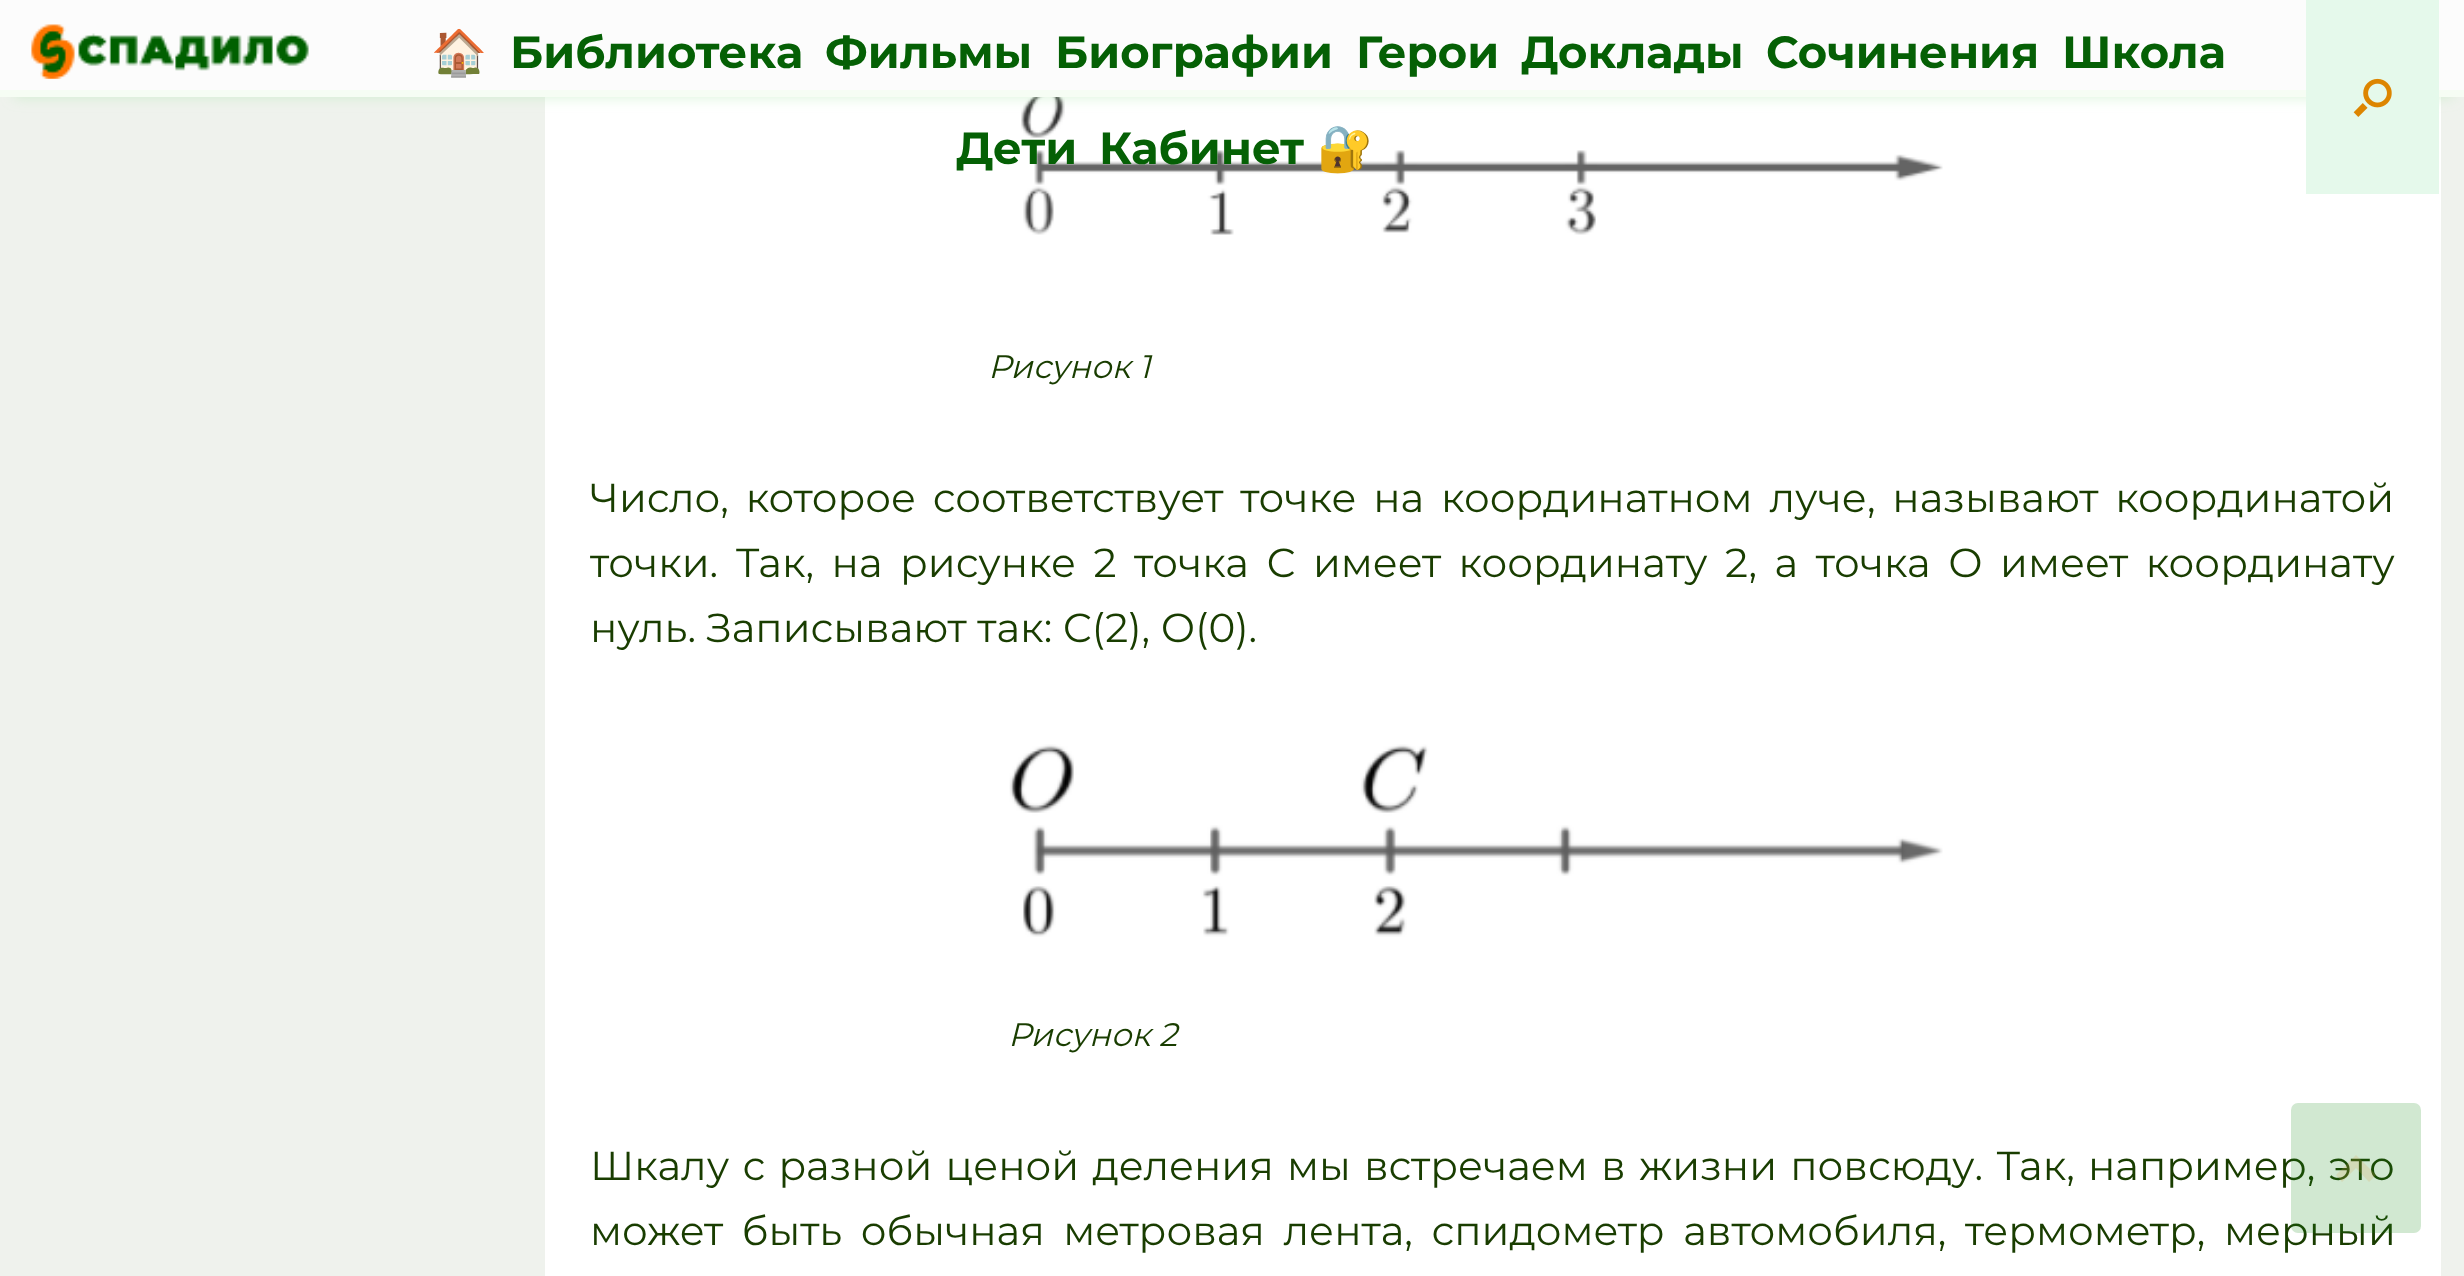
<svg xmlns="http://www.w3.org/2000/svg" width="2464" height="1276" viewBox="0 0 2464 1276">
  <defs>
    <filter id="blur1" x="-50%" y="-200%" width="200%" height="500%"><feGaussianBlur stdDeviation="7"/></filter>
  </defs>
  <rect width="100%" height="100%" fill="#eff2ed"/>
  <rect x="545" y="97" width="1896" height="1179" fill="#ffffff"/>
  <image x="1021" y="97" width="922" height="138" href="img3.png"/>
  <rect x="14" y="27" width="2439" height="70" fill="#b1eab1" fill-opacity="0.5" filter="url(#blur1)"/>
  <rect x="0" y="0" width="2464" height="90" fill="#fcfcfc"/>
  <rect x="0" y="90" width="2464" height="7" fill="#f6fdf4"/>
  <image x="31" y="24" width="278" height="55" href="img1.png"/>
  <text x="431" y="68" font-family="Noto Color Emoji" font-size="45" font-weight="bold" fill="#056005">🏠</text>
  <text x="510" y="68" font-family="Montserrat" font-size="45" font-weight="bold" fill="#056005">Библиотека</text>
  <text x="825" y="68" font-family="Montserrat" font-size="45" font-weight="bold" fill="#056005">Фильмы</text>
  <text x="1055" y="68" font-family="Montserrat" font-size="45" font-weight="bold" fill="#056005">Биографии</text>
  <text x="1356" y="68" font-family="Montserrat" font-size="45" font-weight="bold" fill="#056005">Герои</text>
  <text x="1521" y="68" font-family="Montserrat" font-size="45" font-weight="bold" fill="#056005">Доклады</text>
  <text x="1766" y="68" font-family="Montserrat" font-size="45" font-weight="bold" fill="#056005">Сочинения</text>
  <text x="2062" y="68" font-family="Montserrat" font-size="45" font-weight="bold" fill="#056005">Школа</text>
  <text x="956" y="164" font-family="Montserrat" font-size="45" font-weight="bold" fill="#056005">Дети</text>
  <text x="1099" y="164" font-family="Montserrat" font-size="45" font-weight="bold" fill="#056005">Кабинет</text>
  <text x="1317" y="164" font-family="Noto Color Emoji" font-size="45" font-weight="bold" fill="#056005">🔐</text>
  <rect x="2306" y="0" width="133" height="194" fill="#e5f9eb"/>
  <image x="2353" y="78" width="39" height="39" href="img2.png"/>
  <text x="988" y="378" font-family="Montserrat" font-size="32.5" font-style="italic" fill="#193d00">Рисунок 1</text>
  <text x="590" y="512" word-spacing="6.25" font-family="Montserrat" font-size="40.5" fill="#193d00">Число, которое соответствует точке на координатном луче, называют координатой</text>
  <text x="590" y="577" word-spacing="6.9" font-family="Montserrat" font-size="40.5" fill="#193d00">точки. Так, на рисунке 2 точка С имеет координату 2, а точка О имеет координату</text>
  <text x="590" y="642" font-family="Montserrat" font-size="40.5" fill="#193d00">нуль. Записывают так: С(2), О(0).</text>
  <image x="1009" y="744" width="934" height="193" href="img4.png"/>
  <text x="1008" y="1046" font-family="Montserrat" font-size="32.5" font-style="italic" fill="#193d00">Рисунок 2</text>
  <text x="590" y="1180" word-spacing="2.6" font-family="Montserrat" font-size="40.5" fill="#193d00">Шкалу с разной ценой деления мы встречаем в жизни повсюду. Так, например, это</text>
  <text x="590" y="1245" word-spacing="8" font-family="Montserrat" font-size="40.5" fill="#193d00">может быть обычная метровая лента, спидометр автомобиля, термометр, мерный</text>
  <rect x="2291" y="1103" width="130" height="130" rx="7" fill="#198e1b" fill-opacity="0.2"/>
  <path d="M2376 1175L2356 1155L2336 1175L2342 1182L2356 1168L2369 1182Z" fill="#dda54f" fill-opacity="0.2"/>
</svg>
